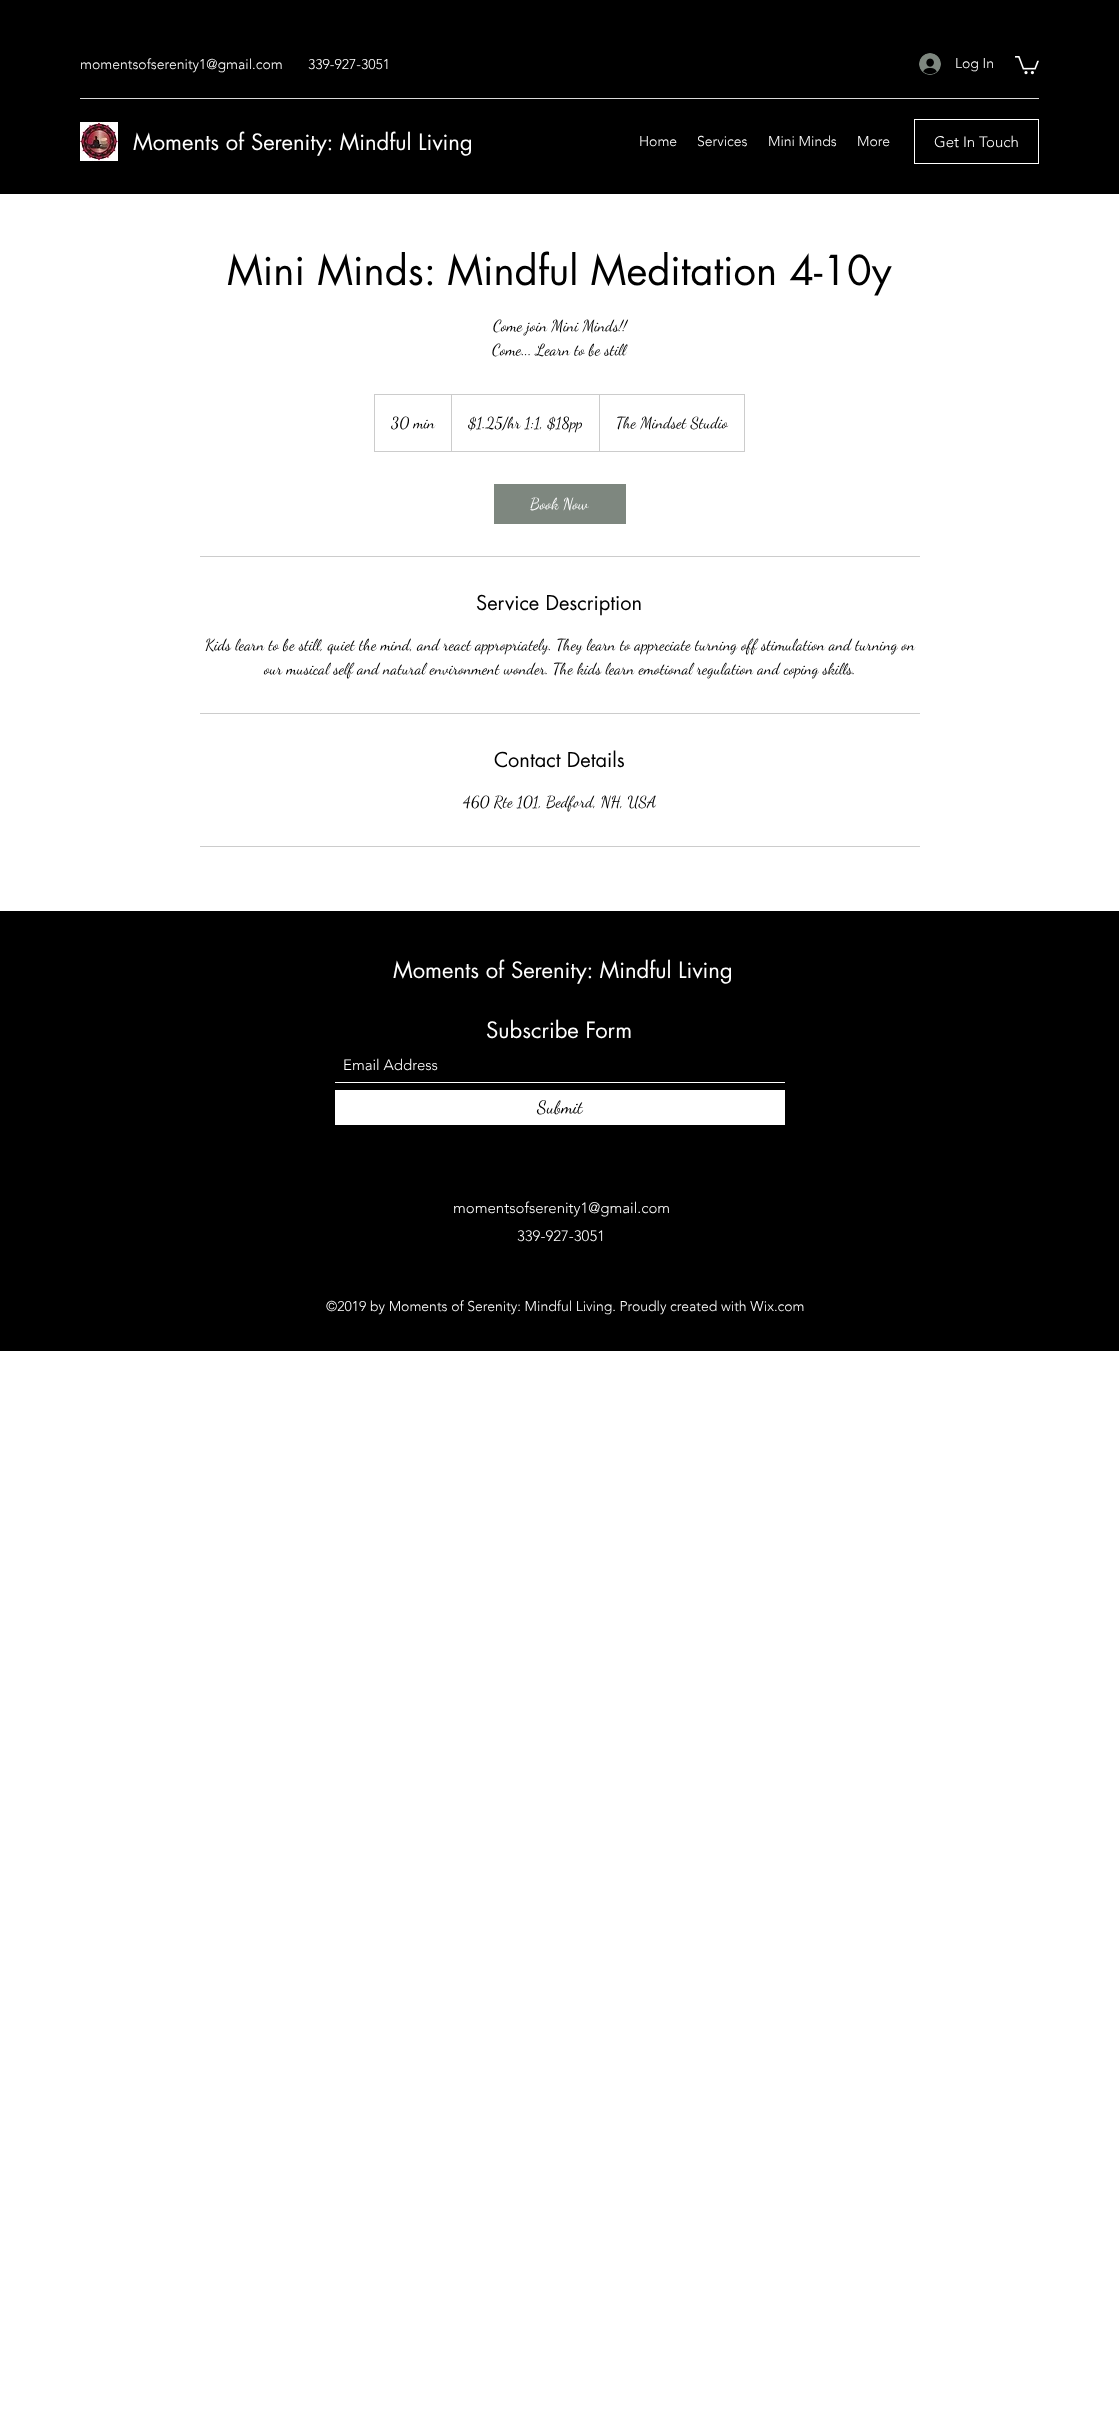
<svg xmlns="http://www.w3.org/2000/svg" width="1119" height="2419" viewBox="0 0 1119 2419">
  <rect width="100%" height="100%" fill="#ffffff"/>
  <rect x="0" y="0" width="1119" height="194" fill="#000000"/>
  <text x="80" y="69" font-family="'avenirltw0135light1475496'" font-size="14" font-weight="300" fill="#ffffff">momentsofserenity1@gmail.com</text>
  <text x="308" y="69" font-family="'avenirltw0135light1475496'" font-size="14" font-weight="300" fill="#ffffff">339-927-3051</text>
  <image x="919" y="53" width="22" height="22" href="img1.png"/>
  <text x="955" y="68" font-family="'avenirltw0135light1475496'" font-size="14" font-weight="300" fill="#ffffff">Log In</text>
  <image x="1015" y="56" width="24" height="19" href="img2.png"/>
  <rect x="80" y="98" width="959" height="1" fill="#d9d9d9"/>
  <image x="80" y="122" width="38" height="39" href="img3.png"/>
  <text x="133" y="150" font-family="futura" font-size="22" fill="#ffffff">Moments of Serenity: Mindful Living</text>
  <text x="639" y="146" font-family="'avenirltw0135light1475496'" font-size="14" font-weight="300" fill="#ffffff">Home</text>
  <text x="697" y="146" font-family="'avenirltw0135light1475496'" font-size="14" font-weight="300" fill="#ffffff">Services</text>
  <text x="768" y="146" font-family="'avenirltw0135light1475496'" font-size="14" font-weight="300" fill="#ffffff">Mini Minds</text>
  <text x="857" y="146" font-family="'avenirltw0135light1475496'" font-size="14" font-weight="300" fill="#ffffff">More</text>
  <rect x="914.5" y="119.5" width="124" height="44" fill="none" stroke="#ffffff"/>
  <text x="934" y="147" font-family="'avenirltw0135light1475496'" font-size="15" font-weight="300" fill="#ffffff">Get In Touch</text>
  <text x="227" y="285" font-family="futura" font-size="40" fill="#000000">Mini Minds: Mindful Meditation 4-10y</text>
  <text x="493" y="331" font-family="Dancing Script" font-size="16" fill="#000000">Come join Mini Minds!!</text>
  <text x="492" y="355" font-family="Dancing Script" font-size="16" fill="#000000">Come... Learn to be still</text>
  <rect x="374.5" y="394.5" width="370" height="57" fill="none" stroke="#cccccc"/>
  <text x="391" y="428" font-family="Dancing Script" font-size="16" fill="#000000">30 min</text>
  <path d="M451 451V394L452 395V451Z" fill="#cccccc"/>
  <text x="468" y="428" font-family="Dancing Script" font-size="16" fill="#000000">$1.25/hr 1:1, $18pp</text>
  <path d="M599 451V394L600 395V451Z" fill="#cccccc"/>
  <text x="616" y="428" font-family="Dancing Script" font-size="16" fill="#000000">The Mindset Studio</text>
  <rect x="494" y="484" width="132" height="40" fill="#7e877f"/>
  <text x="530" y="509" font-family="Dancing Script" font-size="16" fill="#ffffff">Book Now</text>
  <rect x="200" y="556" width="720" height="1" fill="#cccccc"/>
  <text x="476" y="610" font-family="futura" font-size="20" fill="#000000">Service Description</text>
  <text x="205" y="650" font-family="Dancing Script" font-size="16" fill="#000000">Kids learn to be still, quiet the mind, and react appropriately. They learn to appreciate turning off stimulation and turning on</text>
  <text x="264" y="674" font-family="Dancing Script" font-size="16" fill="#000000">our musical self and natural environment wonder. The kids learn emotional regulation and coping skills.</text>
  <rect x="200" y="713" width="720" height="1" fill="#cccccc"/>
  <text x="494" y="767" font-family="futura" font-size="20" fill="#000000">Contact Details</text>
  <text x="463" y="807" font-family="Dancing Script" font-size="16" fill="#000000">460 Rte 101, Bedford, NH, USA</text>
  <rect x="200" y="846" width="720" height="1" fill="#cccccc"/>
  <rect x="0" y="911" width="1119" height="440" fill="#000000"/>
  <text x="393" y="978" font-family="futura" font-size="22" fill="#ffffff">Moments of Serenity: Mindful Living</text>
  <text x="486" y="1038" font-family="futura" font-size="22" fill="#ffffff">Subscribe Form</text>
  <rect x="335" y="1082" width="450" height="1" fill="#ffffff"/>
  <text x="343" y="1070" font-family="'avenirltw0135light1475496'" font-size="15" font-weight="300" fill="#ffffff">Email Address</text>
  <rect x="335" y="1090" width="450" height="35" fill="#ffffff"/>
  <text x="537" y="1113" font-family="Dancing Script" font-size="18" fill="#000000">Submit</text>
  <text x="453" y="1213" font-family="'avenirltw0135light1475496'" font-size="15" font-weight="300" fill="#ffffff">momentsofserenity1@gmail.com</text>
  <text x="517" y="1241" font-family="'avenirltw0135light1475496'" font-size="15" font-weight="300" fill="#ffffff">339-927-3051</text>
  <text x="326" y="1311" font-family="'avenirltw0135light1475496'" font-size="14" font-weight="300" fill="#ffffff">©2019 by Moments of Serenity: Mindful Living. Proudly created with Wix.com</text>
</svg>
